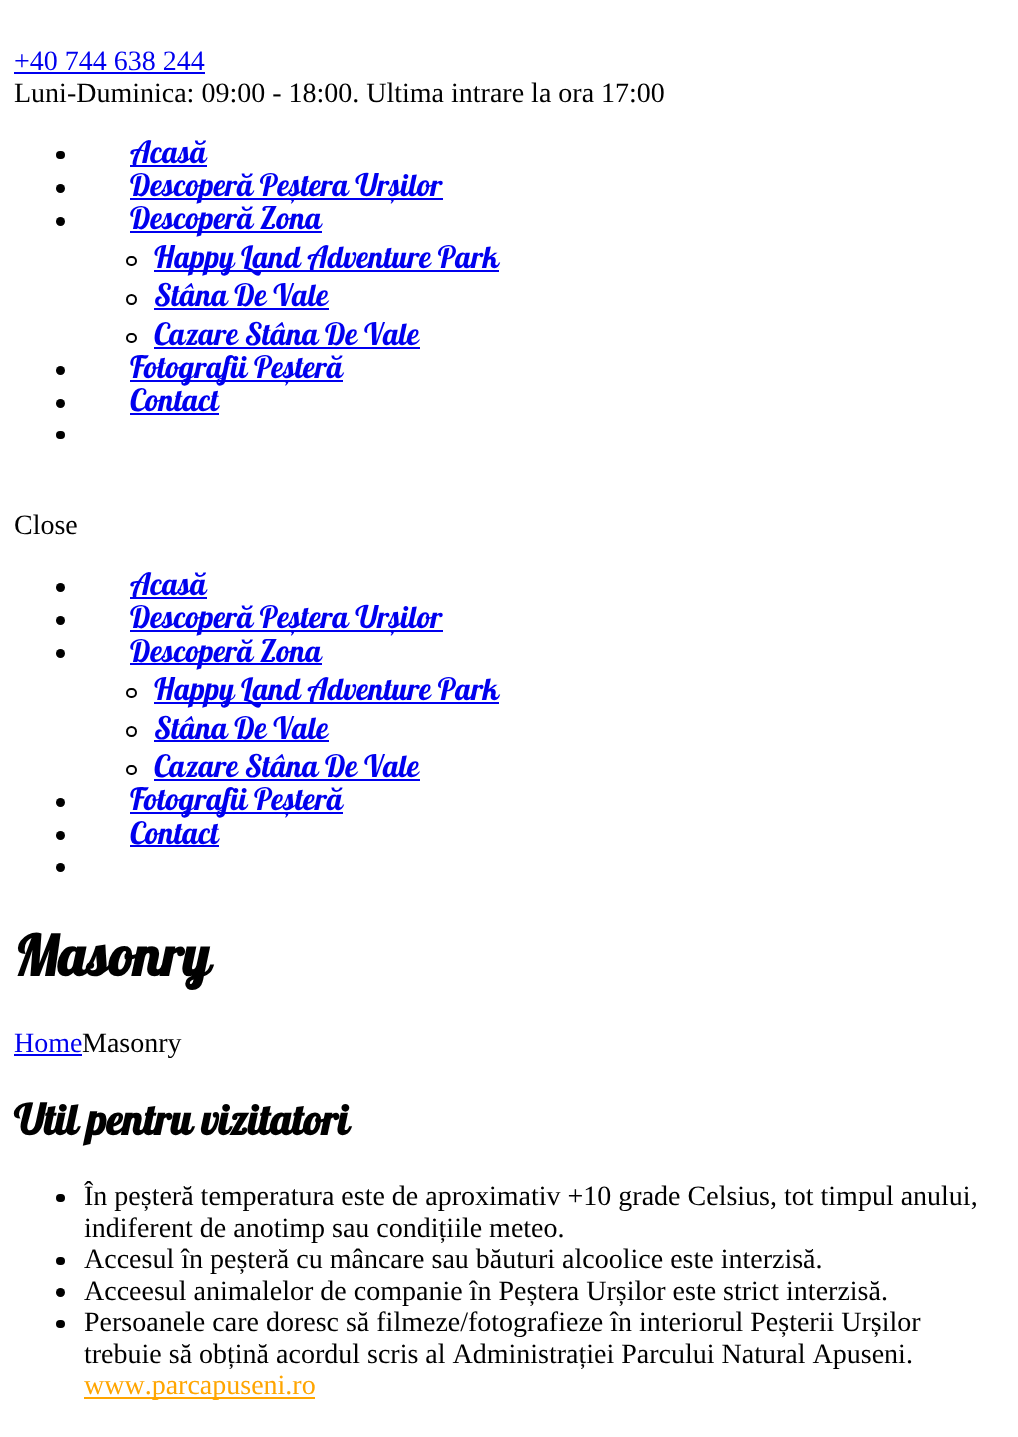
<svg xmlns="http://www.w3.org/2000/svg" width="1018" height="1437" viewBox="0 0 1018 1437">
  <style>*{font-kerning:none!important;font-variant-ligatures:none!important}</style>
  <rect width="100%" height="100%" fill="#ffffff"/>
  <text x="14" y="70" font-family="Liberation Serif" font-size="28" fill="#0000ee">+40 744 638 244</text>
  <rect x="14" y="72" width="191" height="2" fill="#0000ee"/>
  <text x="14" y="102" font-family="Liberation Serif" font-size="28" fill="#000000">Luni-Duminica: 09:00 - 18:00. Ultima intrare la ora 17:00</text>
  <rect x="56" y="151" width="9" height="8" rx="4" fill="#000000"/>
  <rect x="130" y="165" width="77" height="2" fill="#0000ee"/>
  <text x="130" y="163" font-family="Lobster" font-size="30.75" fill="#0000ee">Acasă</text>
  <circle cx="60.5" cy="188.5" r="4.5" fill="#000000"/>
  <rect x="130" y="198" width="313" height="2" fill="#0000ee"/>
  <text x="130" y="196" font-family="Lobster" font-size="30.75" fill="#0000ee">Descoperă Peștera Urșilor</text>
  <circle cx="60.5" cy="221.5" r="4.5" fill="#000000"/>
  <rect x="130" y="231" width="192" height="2" fill="#0000ee"/>
  <text x="130" y="229" font-family="Lobster" font-size="30.75" fill="#0000ee">Descoperă Zona</text>
  <rect x="127" y="257" width="9" height="8" rx="4" fill="none" stroke="#000000" stroke-width="2"/>
  <rect x="154" y="270" width="345" height="2" fill="#0000ee"/>
  <text x="154" y="268" font-family="Lobster" font-size="30.75" fill="#0000ee">Happy Land Adventure Park</text>
  <circle cx="131.5" cy="299.5" r="4.5" fill="none" stroke="#000000" stroke-width="2"/>
  <text x="154" y="306" font-family="Lobster" font-size="30.75" fill="#0000ee">Stâna De Vale</text>
  <rect x="154" y="308" width="175" height="2" fill="#0000ee"/>
  <rect x="127" y="334" width="9" height="8" rx="4" fill="none" stroke="#000000" stroke-width="2"/>
  <text x="154" y="345" font-family="Lobster" font-size="30.75" fill="#0000ee">Cazare Stâna De Vale</text>
  <rect x="154" y="347" width="266" height="2" fill="#0000ee"/>
  <circle cx="60.5" cy="370.5" r="4.5" fill="#000000"/>
  <rect x="130" y="380" width="213" height="2" fill="#0000ee"/>
  <text x="130" y="378" font-family="Lobster" font-size="30.75" fill="#0000ee">Fotografii Peșteră</text>
  <circle cx="60.5" cy="403.5" r="4.5" fill="#000000"/>
  <text x="130" y="411" font-family="Lobster" font-size="30.75" fill="#0000ee">Contact</text>
  <rect x="130" y="413" width="89" height="2" fill="#0000ee"/>
  <rect x="56" y="431" width="9" height="8" rx="4" fill="#000000"/>
  <text x="14" y="534" font-family="Liberation Serif" font-size="28" fill="#000000">Close</text>
  <circle cx="60.5" cy="587.5" r="4.5" fill="#000000"/>
  <rect x="130" y="597" width="77" height="2" fill="#0000ee"/>
  <text x="130" y="595" font-family="Lobster" font-size="30.75" fill="#0000ee">Acasă</text>
  <circle cx="60.5" cy="620.5" r="4.5" fill="#000000"/>
  <rect x="130" y="630" width="313" height="2" fill="#0000ee"/>
  <text x="130" y="628" font-family="Lobster" font-size="30.75" fill="#0000ee">Descoperă Peștera Urșilor</text>
  <circle cx="60.5" cy="653.5" r="4.5" fill="#000000"/>
  <rect x="130" y="663" width="192" height="2" fill="#0000ee"/>
  <text x="130" y="662" font-family="Lobster" font-size="30.75" fill="#0000ee">Descoperă Zona</text>
  <rect x="127" y="689" width="9" height="8" rx="4" fill="none" stroke="#000000" stroke-width="2"/>
  <rect x="154" y="702" width="345" height="2" fill="#0000ee"/>
  <text x="154" y="700" font-family="Lobster" font-size="30.75" fill="#0000ee">Happy Land Adventure Park</text>
  <circle cx="131.5" cy="731.5" r="4.5" fill="none" stroke="#000000" stroke-width="2"/>
  <text x="154" y="739" font-family="Lobster" font-size="30.75" fill="#0000ee">Stâna De Vale</text>
  <rect x="154" y="740" width="175" height="2" fill="#0000ee"/>
  <rect x="127" y="766" width="9" height="8" rx="4" fill="none" stroke="#000000" stroke-width="2"/>
  <text x="154" y="777" font-family="Lobster" font-size="30.75" fill="#0000ee">Cazare Stâna De Vale</text>
  <rect x="154" y="779" width="266" height="2" fill="#0000ee"/>
  <circle cx="60.5" cy="802.5" r="4.5" fill="#000000"/>
  <rect x="130" y="812" width="213" height="2" fill="#0000ee"/>
  <text x="130" y="810" font-family="Lobster" font-size="30.75" fill="#0000ee">Fotografii Peșteră</text>
  <circle cx="60.5" cy="835.5" r="4.5" fill="#000000"/>
  <text x="130" y="844" font-family="Lobster" font-size="30.75" fill="#0000ee">Contact</text>
  <rect x="130" y="845" width="89" height="2" fill="#0000ee"/>
  <circle cx="60.5" cy="867.5" r="4.5" fill="#000000"/>
  <text x="14" y="976" font-family="Lobster" font-size="56" font-weight="bold" fill="#000000">Masonry</text>
  <text x="14" y="1052" font-family="Liberation Serif" font-size="28" fill="#0000ee">Home</text>
  <rect x="14" y="1054" width="68" height="2" fill="#0000ee"/>
  <text x="82" y="1052" font-family="Liberation Serif" font-size="28" fill="#000000">Masonry</text>
  <text x="14" y="1135" font-family="Lobster" font-size="42" font-weight="bold" fill="#000000">Util pentru vizitatori</text>
  <rect x="56" y="1194" width="9" height="8" rx="4" fill="#000000"/>
  <text x="84" y="1205" font-family="Liberation Serif" font-size="28" fill="#000000">În peșteră temperatura este de aproximativ +10 grade Celsius, tot timpul anului,</text>
  <text x="84" y="1237" font-family="Liberation Serif" font-size="28" fill="#000000">indiferent de anotimp sau condițiile meteo.</text>
  <rect x="56" y="1257" width="9" height="8" rx="4" fill="#000000"/>
  <text x="84" y="1268" font-family="Liberation Serif" font-size="28" fill="#000000">Accesul în peșteră cu mâncare sau băuturi alcoolice este interzisă.</text>
  <circle cx="60.5" cy="1292.5" r="4.5" fill="#000000"/>
  <text x="84" y="1300" font-family="Liberation Serif" font-size="28" fill="#000000">Acceesul animalelor de companie în Peștera Urșilor este strict interzisă.</text>
  <rect x="56" y="1320" width="9" height="8" rx="4" fill="#000000"/>
  <text x="84" y="1331" font-family="Liberation Serif" font-size="28" fill="#000000">Persoanele care doresc să filmeze/fotografieze în interiorul Peșterii Urșilor</text>
  <text x="84" y="1363" font-family="Liberation Serif" font-size="28" fill="#000000">trebuie să obțină acordul scris al Administrației Parcului Natural Apuseni.</text>
  <rect x="84" y="1397" width="231" height="2" fill="#ffa500"/>
  <text x="84" y="1394" font-family="Liberation Serif" font-size="28" fill="#ffa500">www.parcapuseni.ro</text>
</svg>
